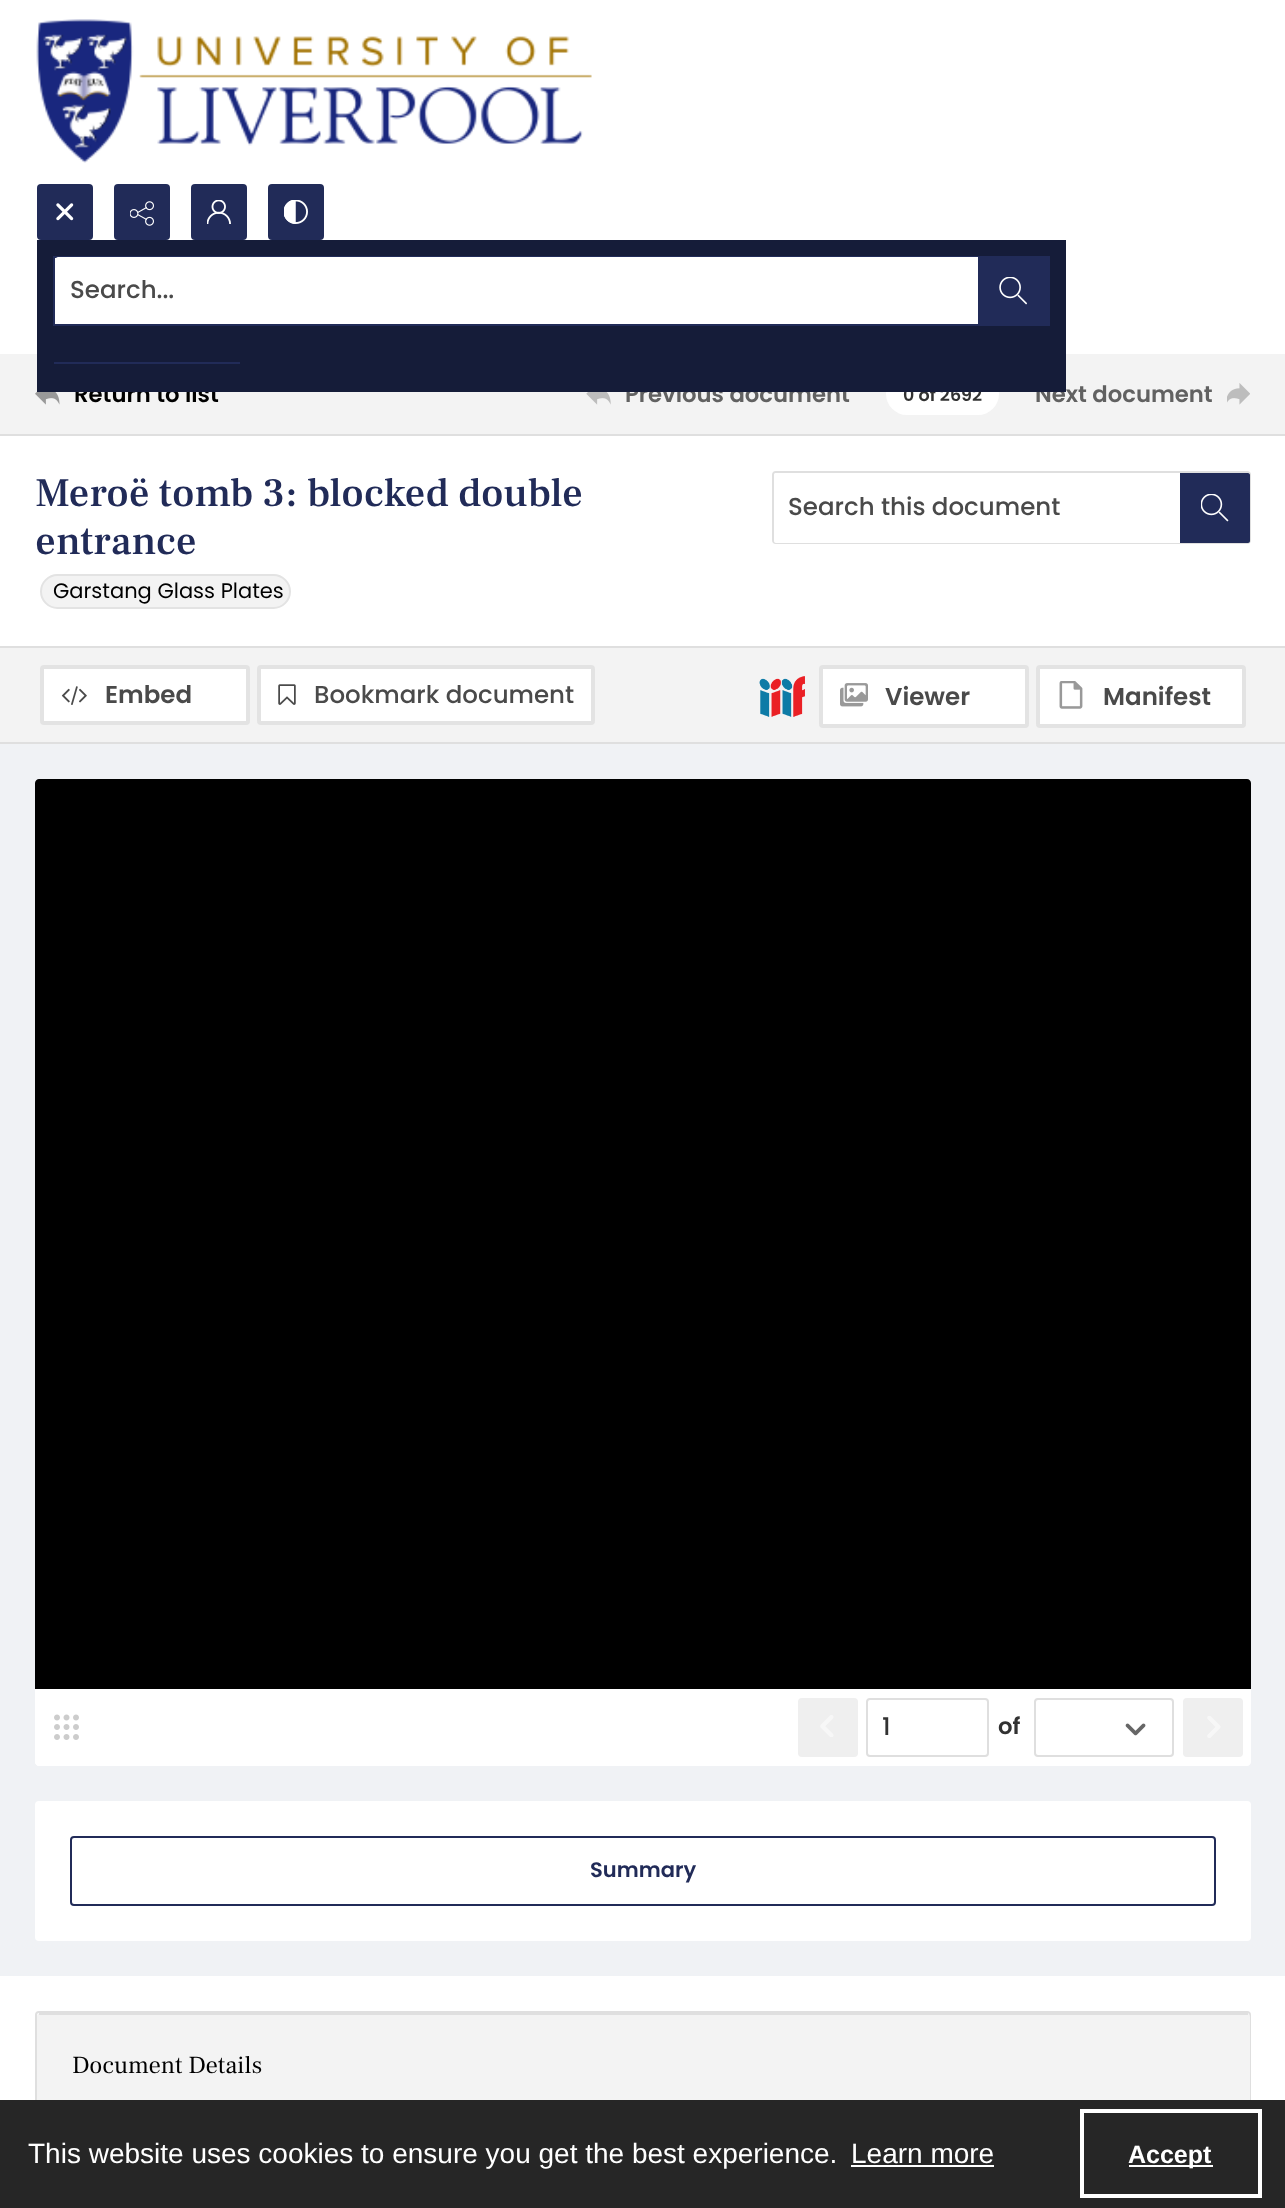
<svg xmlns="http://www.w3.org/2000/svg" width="1285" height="2208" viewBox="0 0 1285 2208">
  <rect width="100%" height="100%" fill="#ffffff"/>
  <image x="36" y="19" width="556" height="144" href="img1.png"/>
  <rect x="114" y="184" width="56" height="56" rx="4" fill="#212b58"/>
  <image x="130" y="201" width="24" height="25" href="img2.png"/>
  <rect x="191" y="184" width="56" height="56" rx="4" fill="#212b58"/>
  <image x="207" y="200" width="24" height="24" href="img3.png"/>
  <rect x="268" y="184" width="56" height="56" rx="4" fill="#212b58"/>
  <image x="284" y="200" width="24" height="24" href="img4.png"/>
  <rect x="37" y="184" width="56" height="56" rx="4" fill="#212b58"/>
  <image x="56" y="203" width="18" height="18" href="img5.png"/>
  <rect x="0" y="354" width="1285" height="80" fill="#f3f3f3"/>
  <image x="35" y="391" width="25" height="14" href="img7.png"/>
  <text x="74" y="402" font-family="Poppins" font-size="22.75" font-weight="600" fill="#000000">Return to list</text>
  <text x="625" y="402" font-family="Poppins" font-size="22.75" font-weight="600" fill="#616161">Previous document</text>
  <rect x="886" y="373" width="113" height="42" rx="21" fill="#ffffff"/>
  <text x="903" y="401" font-family="Poppins" font-size="17.5" font-weight="600" fill="#323232">0 of 2692</text>
  <text x="1035" y="402" font-family="Poppins" font-size="22.75" font-weight="600" fill="#616161">Next document</text>
  <rect x="37" y="240" width="1029" height="152" fill="#151c39"/>
  <rect x="55" y="258" width="3" height="66" fill="#ffffff"/>
  <rect x="54" y="257" width="995" height="68" fill="none" stroke="#212b58" stroke-width="2"/>
  <path d="M58 258H977V323H58C57.5 323 57 322.5 57 322V259C57 258.5 57.5 258 58 258Z" fill="#ffffff" stroke="#ffffff" stroke-width="2"/>
  <text x="70" y="298" font-family="Poppins" font-size="24.5" font-weight="500" fill="#4a4a4a">Search...</text>
  <rect x="978" y="258" width="70" height="66" fill="#212b58"/>
  <image x="999" y="277" width="28" height="28" href="img6.png"/>
  <rect x="54" y="362" width="186" height="2" fill="#212b58"/>
  <rect x="0" y="434" width="1285" height="2" fill="#dfdfdf"/>
  <image x="586" y="392" width="25" height="13" href="img8.png"/>
  <image x="1227" y="383" width="23" height="22" href="img9.png"/>
  <rect x="0" y="744" width="1285" height="1232" fill="#f0f2f5"/>
  <text x="35" y="506" font-family="Frank Ruhl Libre" font-size="40.5" font-weight="500" fill="#212b58">Meroë tomb 3: blocked double</text>
  <text x="35" y="554" font-family="Frank Ruhl Libre" font-size="40.5" font-weight="500" fill="#212b58">entrance</text>
  <rect x="41" y="575" width="249" height="33" rx="16.5" fill="#f3f3f3" stroke="#e3e3e3" stroke-width="2"/>
  <text x="53" y="598" font-family="Poppins" font-size="21" fill="#000000">Garstang Glass Plates</text>
  <rect x="773" y="472" width="477" height="71" rx="3" fill="none" stroke="#dfdfdf" stroke-width="2"/>
  <path d="M776 474H1179V542H776C775.5 542 775 541.5 775 541V475C775 474.5 775.5 474 776 474Z" fill="#ffffff" stroke="#ffffff" stroke-width="2"/>
  <text x="788" y="515" font-family="Poppins" font-size="24.5" font-weight="500" fill="#4a4a4a">Search this document</text>
  <path d="M1180 473H1248C1249 473 1250 474 1250 475V541C1250 542 1249 543 1248 543H1180Z" fill="#212b58"/>
  <image x="1201" y="494" width="28" height="28" href="img10.png"/>
  <rect x="0" y="648" width="1285" height="94" fill="#f3f3f3"/>
  <rect x="0" y="646" width="1285" height="2" fill="#dfdfdf"/>
  <rect x="0" y="742" width="1285" height="2" fill="#dfdfdf"/>
  <rect x="42" y="667" width="206" height="56" rx="2" fill="#ffffff" stroke="#e3e3e3" stroke-width="4"/>
  <image x="61" y="686" width="26" height="19" href="img11.png"/>
  <text x="105" y="703" font-family="Poppins" font-size="24.5" font-weight="600" fill="#4a4a4a">Embed</text>
  <rect x="259" y="667" width="334" height="56" rx="2" fill="#ffffff" stroke="#e3e3e3" stroke-width="4"/>
  <image x="278" y="684" width="18" height="21" href="img12.png"/>
  <text x="314" y="703" font-family="Poppins" font-size="24.5" font-weight="500" fill="#4a4a4a">Bookmark document</text>
  <image x="759" y="676" width="46" height="41" href="img13.png"/>
  <rect x="821" y="667" width="206" height="59" rx="2" fill="#ffffff" stroke="#e3e3e3" stroke-width="4"/>
  <image x="840" y="683" width="28" height="24" href="img14.png"/>
  <text x="885" y="705" font-family="Poppins" font-size="24.5" font-weight="600" fill="#4a4a4a">Viewer</text>
  <rect x="1038" y="667" width="206" height="59" rx="2" fill="#ffffff" stroke="#e3e3e3" stroke-width="4"/>
  <image x="1059" y="681" width="24" height="28" href="img15.png"/>
  <text x="1103" y="705" font-family="Poppins" font-size="24.5" font-weight="600" fill="#4a4a4a">Manifest</text>
  <path d="M39 779H1247C1249 779 1251 781 1251 783V1689H35V783C35 781 37 779 39 779Z" fill="#000000"/>
  <path d="M35 1689H1251V1762C1251 1764 1249 1766 1247 1766H39C37 1766 35 1764 35 1762Z" fill="#ffffff"/>
  <path d="M35 1689H298V1766H39C37 1766 35 1764 35 1762Z" fill="#ffffff"/>
  <image x="54" y="1714" width="25" height="26" href="img16.png"/>
  <rect x="798" y="1698" width="60" height="59" rx="4" fill="#efefef"/>
  <image x="820" y="1715" width="14" height="22" href="img17.png"/>
  <rect x="867" y="1699" width="121" height="57" rx="3" fill="none" stroke="#dfdfdf" stroke-width="2"/>
  <text x="882" y="1735" font-family="Poppins" font-size="24.5" font-weight="500" fill="#323232">1</text>
  <text x="998" y="1734" font-family="Poppins" font-size="22.75" font-weight="600" fill="#323232">of</text>
  <image x="1125" y="1723" width="21" height="13" href="img18.png"/>
  <rect x="1035" y="1699" width="138" height="57" rx="3" fill="none" stroke="#dfdfdf" stroke-width="2"/>
  <rect x="1183" y="1698" width="60" height="59" rx="4" fill="#efefef"/>
  <image x="1207" y="1716" width="14" height="22" href="img19.png"/>
  <rect x="35" y="1801" width="1216" height="140" rx="4" fill="#ffffff"/>
  <rect x="71" y="1837" width="1144" height="68" rx="3" fill="none" stroke="#212b58" stroke-width="2"/>
  <text x="590" y="1877" font-family="Poppins" font-size="21" font-weight="600" fill="#212b58">Summary</text>
  <rect x="36" y="2012" width="1214" height="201" rx="3" fill="none" stroke="#dfdfdf" stroke-width="2"/>
  <rect x="37" y="2013" width="1213" height="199" rx="4" fill="#f3f3f3"/>
  <rect x="39" y="2013" width="1209" height="2" fill="#dfdfdf"/>
  <text x="72" y="2073" font-family="Frank Ruhl Libre" font-size="24.5" fill="#000000">Document Details</text>
  <rect x="0" y="2100" width="1285" height="108" fill="#262626"/>
  <text x="28" y="2163" font-family="Liberation Sans" font-size="28" fill="#ffffff">This website uses cookies to ensure you get the best experience.</text>
  <text x="851" y="2163" font-family="Liberation Sans" font-size="28" fill="#ffffff">Learn more</text>
  <rect x="851" y="2165" width="143" height="2" fill="#ffffff"/>
  <rect x="1082" y="2111" width="178" height="85" fill="none" stroke="#ffffff" stroke-width="4"/>
  <rect x="1129" y="2165" width="84" height="2" fill="#ffffff"/>
  <text x="1128" y="2163" font-family="Liberation Sans" font-size="25" font-weight="bold" fill="#ffffff">Accept</text>
</svg>
